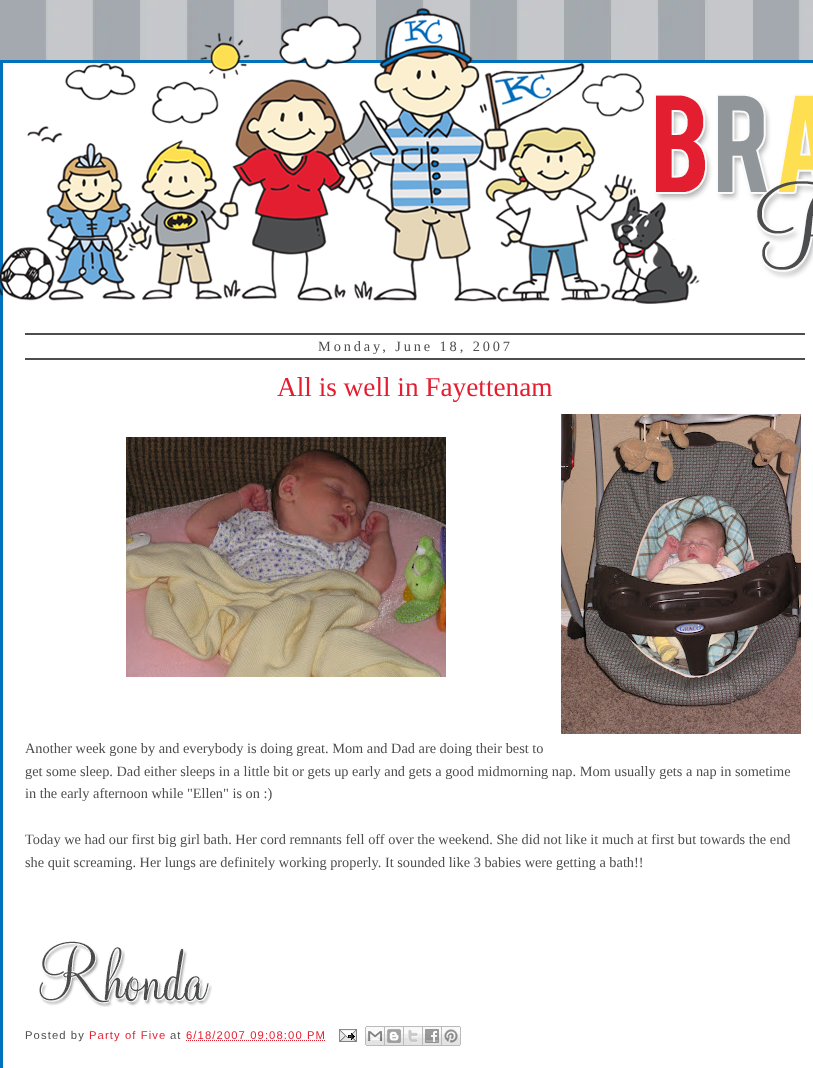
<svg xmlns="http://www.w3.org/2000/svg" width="813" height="1068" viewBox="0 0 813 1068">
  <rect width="100%" height="100%" fill="#ffffff"/>
  <image x="0" y="0" width="813" height="60" href="img1.png"/>
  <rect x="1.5" y="61.5" width="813" height="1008" fill="none" stroke="#0072bd" stroke-width="3"/>
  <image x="0" y="8" width="813" height="296" href="img2.png"/>
  <rect x="25" y="333" width="780" height="2" fill="#4c4d4f"/>
  <rect x="25" y="358" width="780" height="2" fill="#4c4d4f"/>
  <text x="318" y="351" font-family="Liberation Serif" font-size="14.33" letter-spacing="2.9" fill="#4c4d4f">Monday, June 18, 2007</text>
  <text x="277" y="396" font-family="Liberation Serif" font-size="27.25" fill="#e41e31">All is well in Fayettenam</text>
  <image x="561" y="414" width="240" height="320" href="img3.png"/>
  <image x="126" y="437" width="320" height="240" href="img4.png"/>
  <text x="25" y="753" font-family="Liberation Serif" font-size="14.33" fill="#4c4d4f">Another week gone by and everybody is doing great. Mom and Dad are doing their best to</text>
  <text x="25" y="776" font-family="Liberation Serif" font-size="14.33" fill="#4c4d4f">get some sleep. Dad either sleeps in a little bit or gets up early and gets a good midmorning nap. Mom usually gets a nap in sometime</text>
  <text x="25" y="798" font-family="Liberation Serif" font-size="14.33" fill="#4c4d4f">in the early afternoon while "Ellen" is on :)</text>
  <text x="25" y="844" font-family="Liberation Serif" font-size="14.33" fill="#4c4d4f">Today we had our first big girl bath. Her cord remnants fell off over the weekend. She did not like it much at first but towards the end</text>
  <text x="25" y="867" font-family="Liberation Serif" font-size="14.33" fill="#4c4d4f">she quit screaming. Her lungs are definitely working properly. It sounded like 3 babies were getting a bath!!</text>
  <image x="39" y="941" width="173" height="66" href="img5.png"/>
  <text x="25" y="1039" font-family="Liberation Sans" font-size="11.25" letter-spacing="1.1" fill="#4c4d4f">Posted by</text>
  <text x="89" y="1039" font-family="Liberation Sans" font-size="11.25" letter-spacing="1.1" fill="#e41e31">Party of Five</text>
  <text x="170" y="1039" font-family="Liberation Sans" font-size="11.25" letter-spacing="1.1" fill="#4c4d4f">at</text>
  <text x="186" y="1039" font-family="Liberation Sans" font-size="11.25" letter-spacing="1.1" fill="#e41e31">6/18/2007 09:08:00 PM</text>
  <path d="M186 1040.5H325.5" fill="none" stroke="#e41e31" stroke-dasharray="1 1"/>
  <image x="339" y="1029" width="18" height="13" href="img6.png"/>
  <image x="365" y="1026" width="20" height="20" href="img7.png"/>
  <image x="385" y="1026" width="19" height="20" href="img8.png"/>
  <image x="404" y="1026" width="19" height="20" href="img9.png"/>
  <image x="423" y="1026" width="19" height="20" href="img10.png"/>
  <image x="442" y="1026" width="19" height="20" href="img11.png"/>
</svg>
